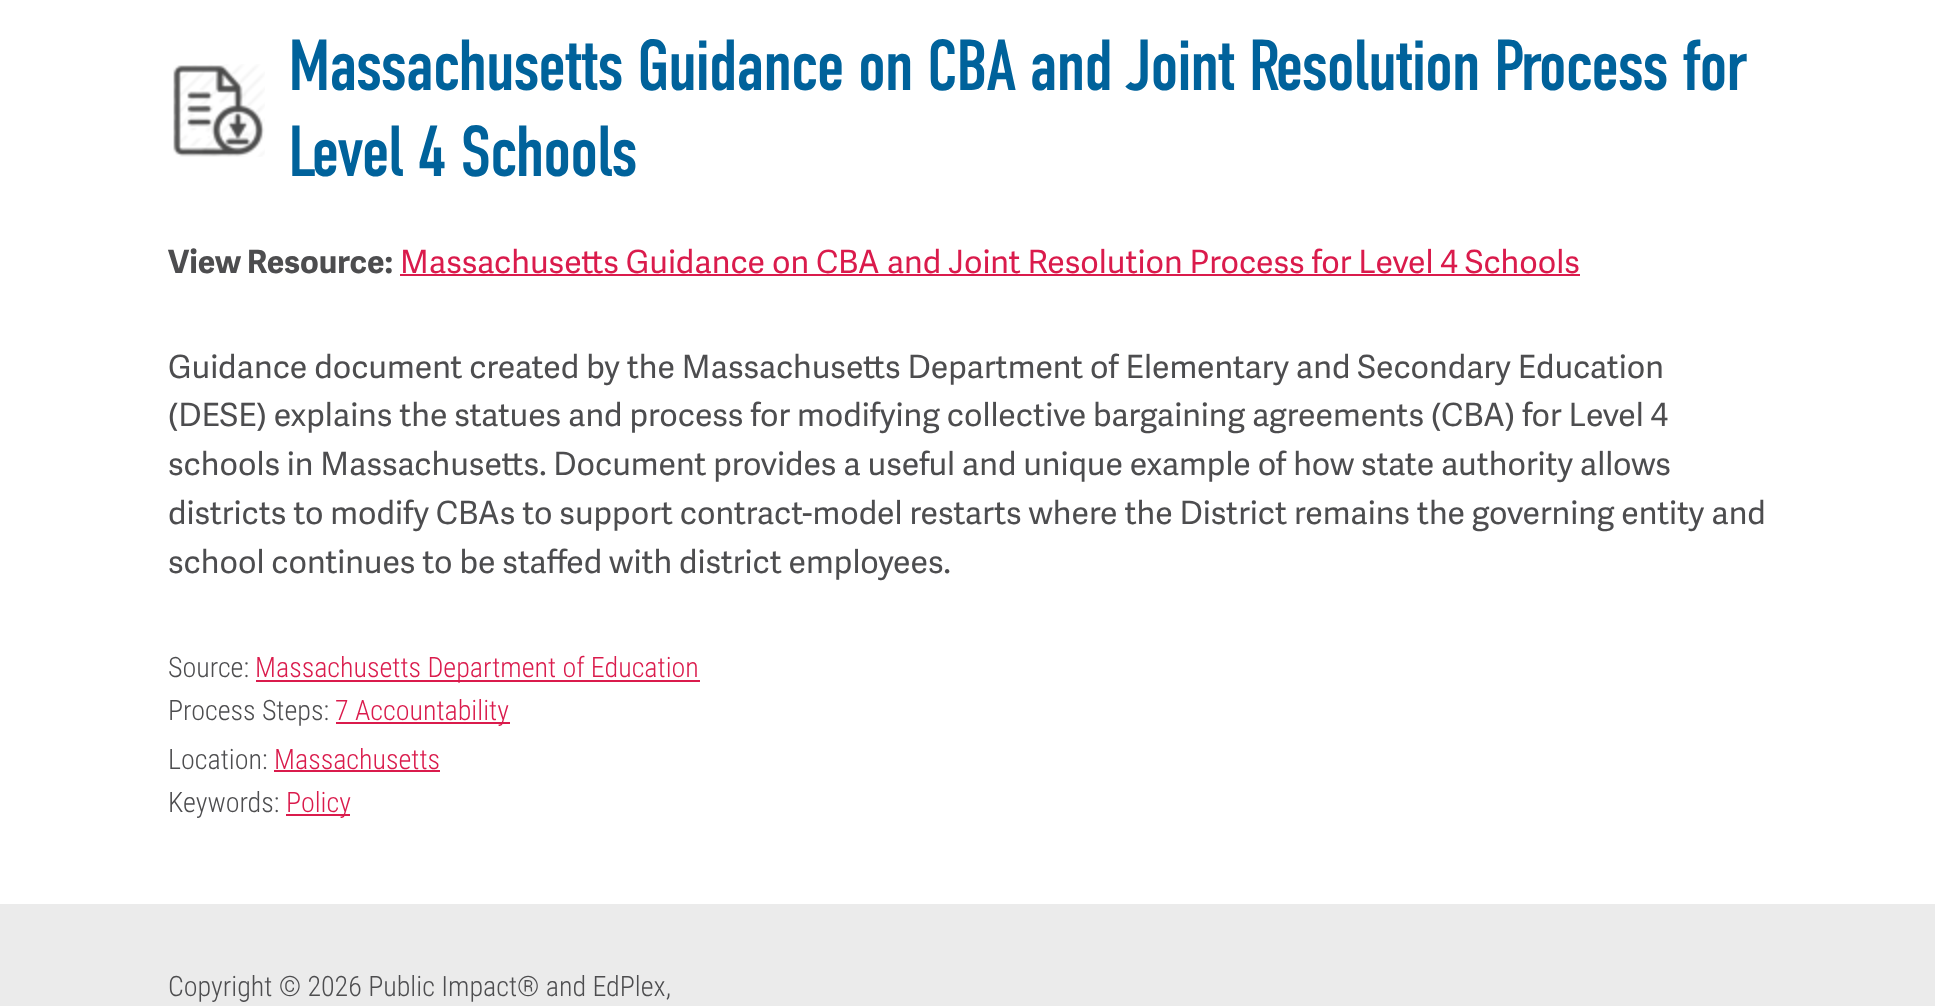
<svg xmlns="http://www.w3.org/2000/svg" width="1935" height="1006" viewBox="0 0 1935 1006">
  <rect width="100%" height="100%" fill="#ffffff"/>
  <image x="173" y="64" width="92" height="93" href="img1.png"/>
  <text x="288" y="90" font-family="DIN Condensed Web" font-size="72" letter-spacing="-2" fill="#00629b">Massachusetts Guidance on CBA and Joint Resolution Process for</text>
  <text x="288" y="176" font-family="DIN Condensed Web" font-size="72" letter-spacing="-2" fill="#00629b">Level 4 Schools</text>
  <text x="168" y="273" font-family="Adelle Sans" font-size="32" font-weight="bold" fill="#4d4d4f">View Resource:</text>
  <text x="400" y="273" font-family="Adelle Sans" font-size="32" fill="#da1b4c">Massachusetts Guidance on CBA and Joint Resolution Process for Level 4 Schools</text>
  <rect x="400" y="274" width="1180" height="2" fill="#da1b4c"/>
  <text x="168" y="378" font-family="Adelle Sans" font-size="32" fill="#4d4d4f">Guidance document created by the Massachusetts Department of Elementary and Secondary Education</text>
  <text x="168" y="426" font-family="Adelle Sans" font-size="32" fill="#4d4d4f">(DESE) explains the statues and process for modifying collective bargaining agreements (CBA) for Level 4</text>
  <text x="168" y="475" font-family="Adelle Sans" font-size="32" fill="#4d4d4f">schools in Massachusetts. Document provides a useful and unique example of how state authority allows</text>
  <text x="168" y="524" font-family="Adelle Sans" font-size="32" fill="#4d4d4f">districts to modify CBAs to support contract-model restarts where the District remains the governing entity and</text>
  <text x="168" y="573" font-family="Adelle Sans" font-size="32" fill="#4d4d4f">school continues to be staffed with district employees.</text>
  <text x="168" y="677" font-family="Roboto Condensed" font-size="28" font-weight="300" fill="#4d4d4f">Source:</text>
  <rect x="256" y="680" width="444" height="2" fill="#da1b4c"/>
  <text x="255" y="677" font-family="Roboto Condensed" font-size="28" font-weight="300" fill="#da1b4c">Massachusetts Department of Education</text>
  <text x="168" y="720" font-family="Roboto Condensed" font-size="28" font-weight="300" fill="#4d4d4f">Process Steps:</text>
  <rect x="336" y="722" width="174" height="2" fill="#da1b4c"/>
  <text x="335" y="720" font-family="Roboto Condensed" font-size="28" font-weight="300" fill="#da1b4c">7 Accountability</text>
  <text x="168" y="769" font-family="Roboto Condensed" font-size="28" font-weight="300" fill="#4d4d4f">Location:</text>
  <text x="274" y="769" font-family="Roboto Condensed" font-size="28" font-weight="300" fill="#da1b4c">Massachusetts</text>
  <rect x="274" y="770" width="166" height="2" fill="#da1b4c"/>
  <text x="168" y="812" font-family="Roboto Condensed" font-size="28" font-weight="300" fill="#4d4d4f">Keywords:</text>
  <rect x="286" y="814" width="64" height="2" fill="#da1b4c"/>
  <text x="286" y="812" font-family="Roboto Condensed" font-size="28" font-weight="300" fill="#da1b4c">Policy</text>
  <rect x="0" y="904" width="1935" height="102" fill="#ebebeb"/>
  <text x="168" y="996" font-family="Roboto Condensed" font-size="28" font-weight="300" fill="#4d4d4f">Copyright © 2026 Public Impact® and EdPlex,</text>
</svg>
